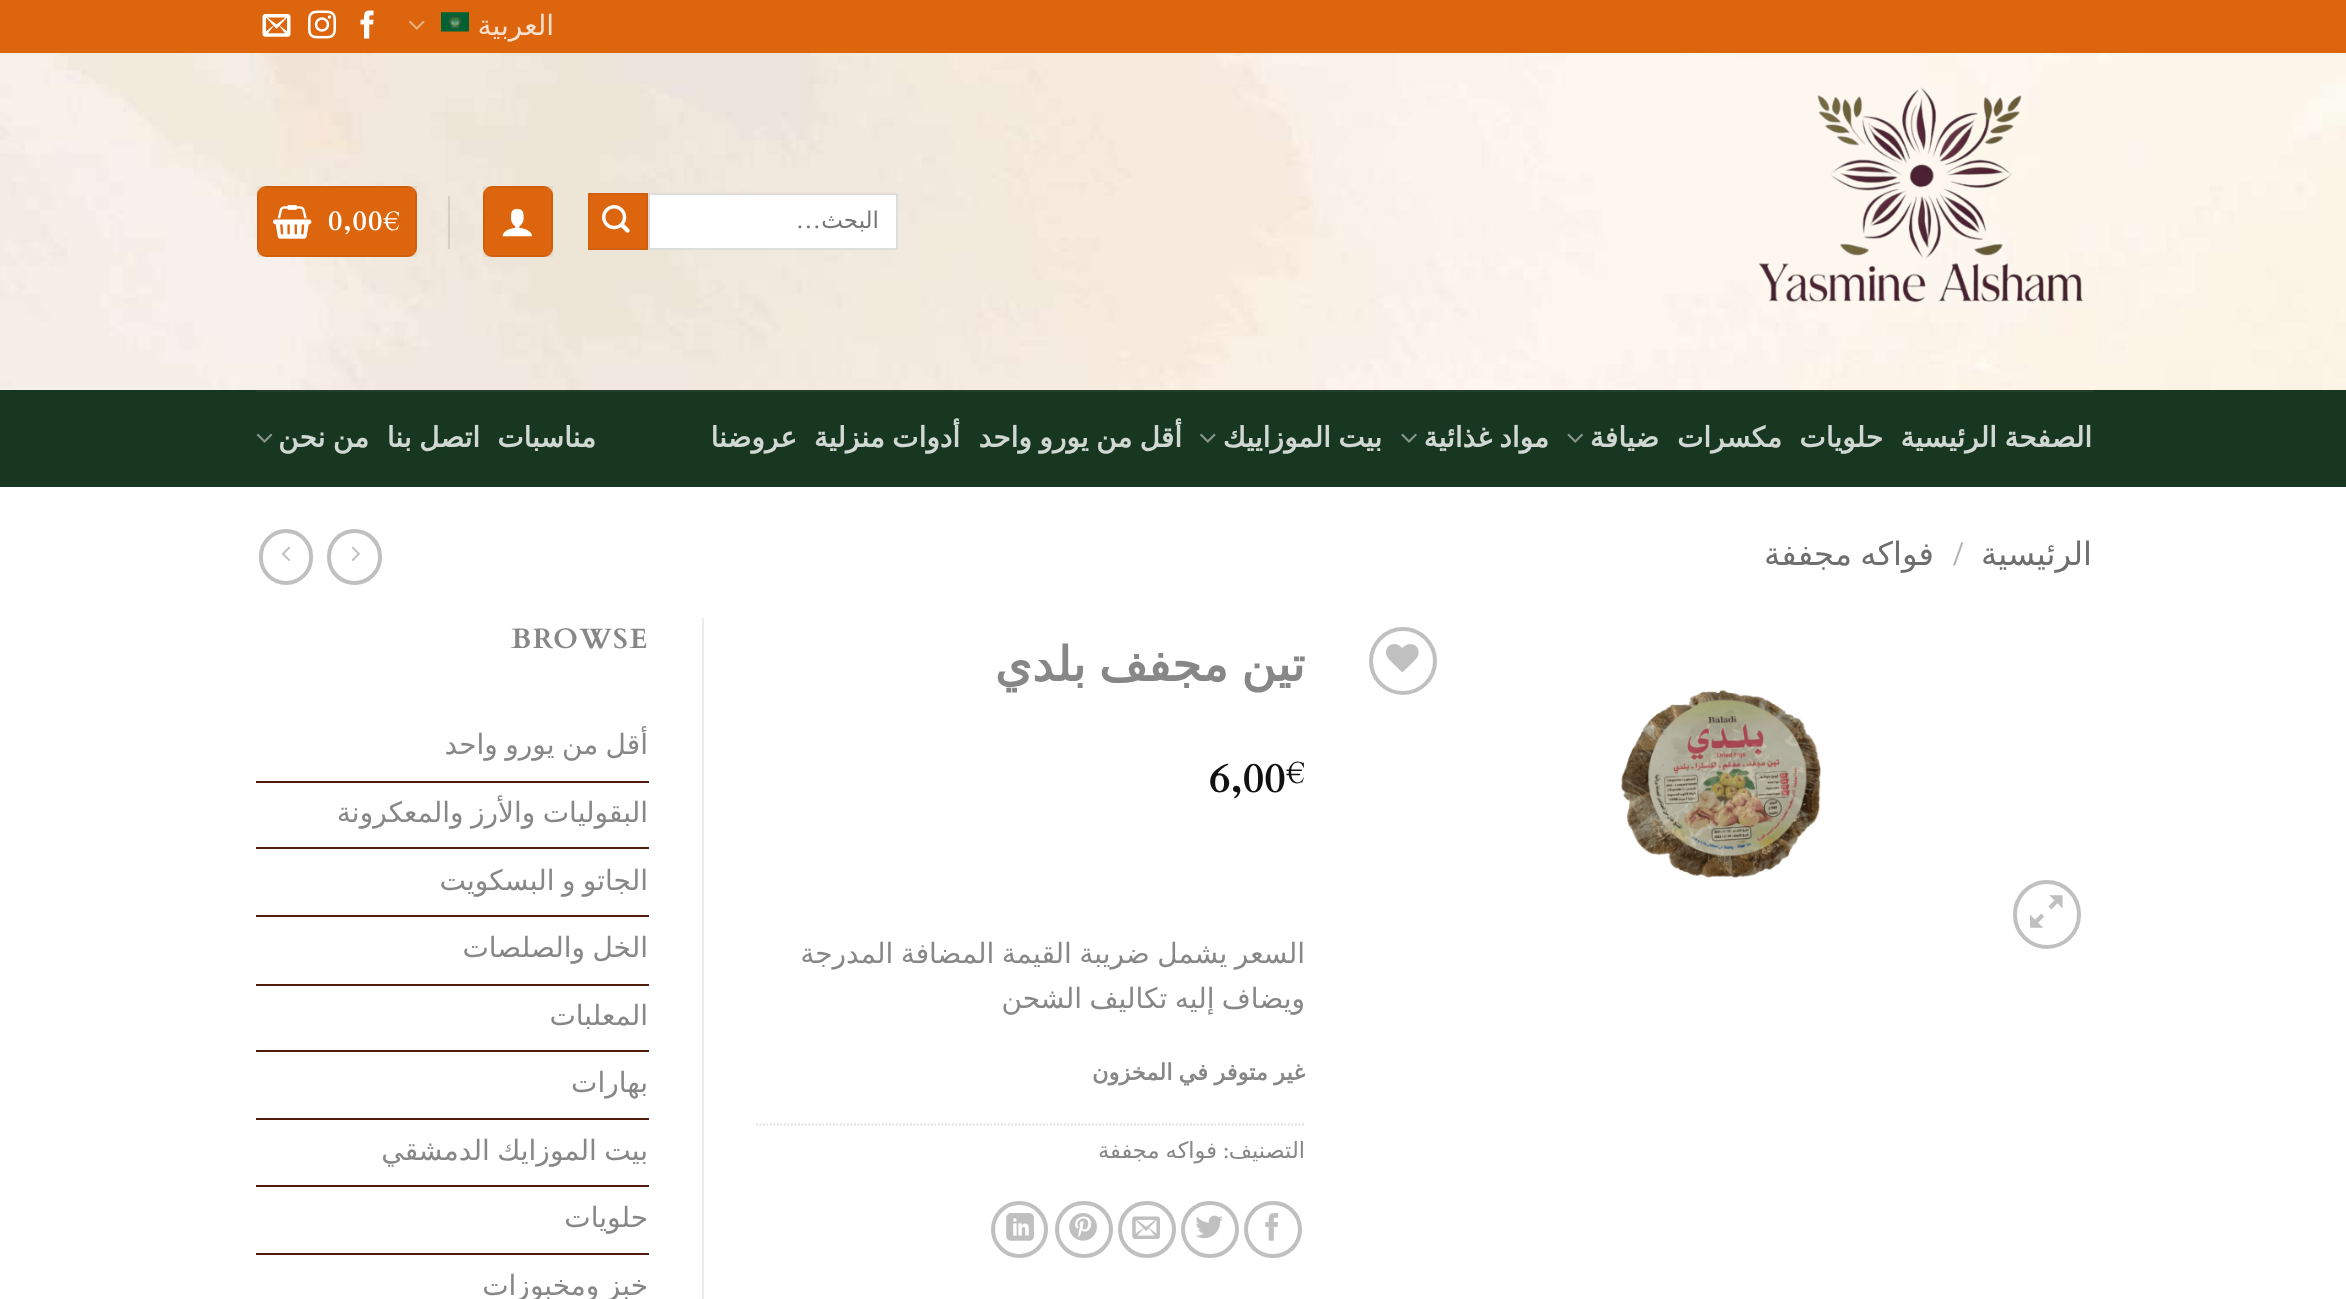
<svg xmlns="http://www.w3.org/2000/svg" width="2346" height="1299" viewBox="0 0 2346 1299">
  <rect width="100%" height="100%" fill="#ffffff"/>
  <rect x="0" y="0" width="2346" height="53" fill="#dc650d"/>
  <text x="554" y="35" font-family="DejaVu Sans" font-size="28" direction="rtl" fill="#f8e0cf">العربية</text>
  <image x="441" y="12" width="28" height="20" href="img1.png"/>
  <image x="409" y="20" width="16" height="10" href="img2.png"/>
  <image x="360" y="10" width="14" height="29" href="img3.png"/>
  <image x="308" y="10" width="28" height="29" href="img4.png"/>
  <image x="262" y="14" width="29" height="23" href="img5.png"/>
  <image x="0" y="53" width="2346" height="337" href="img6.png"/>
  <image x="1758" y="87" width="326" height="216" href="img7.png"/>
  <rect x="649" y="194" width="248" height="55" fill="#ffffff" stroke="#dddddd" stroke-width="2"/>
  <text x="879" y="228" font-family="DejaVu Sans" font-size="23" direction="rtl" fill="#757575">البحث</text>
  <text x="821" y="228" font-family="Cardo" font-size="23" direction="rtl" fill="#757575">…</text>
  <rect x="589" y="194" width="58" height="55" fill="#dc650d" stroke="#d1600c" stroke-width="2"/>
  <image x="602" y="205" width="28" height="28" href="img8.png"/>
  <rect x="483" y="186" width="70" height="71" rx="9" fill="#dc650d"/>
  <rect x="484" y="187" width="68" height="69" fill="none" stroke="#000000" stroke-opacity="0.05" stroke-width="2"/>
  <image x="502" y="208" width="30" height="29" href="img9.png"/>
  <rect x="448" y="196" width="2" height="53" fill="#000000" fill-opacity="0.1"/>
  <rect x="257" y="186" width="160" height="71" rx="9" fill="#dc650d"/>
  <rect x="258" y="187" width="158" height="69" fill="none" stroke="#000000" stroke-opacity="0.05" stroke-width="2"/>
  <text x="328" y="230" font-family="Cardo" font-size="28" font-weight="bold" letter-spacing="1" fill="#ffffff">0,00€</text>
  <image x="273" y="205" width="39" height="34" href="img10.png"/>
  <rect x="0" y="390" width="2346" height="97" fill="#173720"/>
  <rect x="256" y="390" width="1837" height="2" fill="#223f2a"/>
  <text x="2092" y="447" word-spacing="-1.5" font-family="DejaVu Sans" font-size="28" font-weight="bold" direction="rtl" fill="#d1d7d2">الصفحة الرئيسية</text>
  <text x="1883" y="447" font-family="DejaVu Sans" font-size="28" font-weight="bold" direction="rtl" fill="#d1d7d2">حلويات</text>
  <text x="1782" y="447" font-family="DejaVu Sans" font-size="28" font-weight="bold" direction="rtl" fill="#d1d7d2">مكسرات</text>
  <text x="1659" y="447" font-family="DejaVu Sans" font-size="28" font-weight="bold" direction="rtl" fill="#d1d7d2">ضيافة</text>
  <image x="1567" y="433" width="16" height="10" href="img11.png"/>
  <text x="1549" y="447" word-spacing="-1.5" font-family="DejaVu Sans" font-size="28" font-weight="bold" direction="rtl" fill="#d1d7d2">مواد غذائية</text>
  <image x="1401" y="433" width="16" height="10" href="img12.png"/>
  <text x="1382" y="447" word-spacing="-1.5" font-family="DejaVu Sans" font-size="28" font-weight="bold" direction="rtl" fill="#d1d7d2">بيت الموزاييك</text>
  <image x="1200" y="433" width="16" height="10" href="img13.png"/>
  <text x="1182" y="447" word-spacing="-1.5" font-family="DejaVu Sans" font-size="28" font-weight="bold" direction="rtl" fill="#d1d7d2">أقل من يورو واحد</text>
  <text x="960" y="447" word-spacing="-1.5" font-family="DejaVu Sans" font-size="28" font-weight="bold" direction="rtl" fill="#d1d7d2">أدوات منزلية</text>
  <text x="797" y="447" font-family="DejaVu Sans" font-size="28" font-weight="bold" direction="rtl" fill="#d1d7d2">عروضنا</text>
  <text x="596" y="447" font-family="DejaVu Sans" font-size="28" font-weight="bold" direction="rtl" fill="#d1d7d2">مناسبات</text>
  <text x="480" y="447" word-spacing="-1.5" font-family="DejaVu Sans" font-size="28" font-weight="bold" direction="rtl" fill="#d1d7d2">اتصل بنا</text>
  <text x="369" y="447" word-spacing="-1.5" font-family="DejaVu Sans" font-size="28" font-weight="bold" direction="rtl" fill="#d1d7d2">من نحن</text>
  <image x="256" y="433" width="17" height="10" href="img14.png"/>
  <text x="2092" y="565" font-family="DejaVu Sans" font-size="32.25" direction="rtl" fill="#6e6e6e">الرئيسية</text>
  <text x="1953" y="565" font-family="Cardo" font-size="32.25" fill="#b2b2b2">/</text>
  <text x="1934" y="565" word-spacing="-2" font-family="DejaVu Sans" font-size="32.25" direction="rtl" fill="#6e6e6e">فواكه مجففة</text>
  <rect x="329" y="531" width="51" height="52" rx="25.5" fill="none" stroke="#c0c0c0" stroke-width="4"/>
  <image x="351" y="546" width="9" height="15" href="img15.png"/>
  <rect x="261" y="531" width="50" height="52" rx="25" fill="none" stroke="#c0c0c0" stroke-width="4"/>
  <image x="281" y="546" width="10" height="15" href="img16.png"/>
  <circle cx="1403" cy="661" r="32" fill="none" stroke="#c0c0c0" stroke-width="4"/>
  <image x="1386" y="644" width="33" height="28" href="img17.png"/>
  <image x="1620" y="690" width="202" height="188" href="img18.png"/>
  <rect x="2015" y="882" width="64" height="65" rx="32" fill="none" stroke="#c0c0c0" stroke-width="4"/>
  <image x="2030" y="895" width="33" height="33" href="img19.png"/>
  <rect x="702" y="618" width="2" height="681" fill="#ececec"/>
  <text x="1305" y="681" word-spacing="-2" font-family="DejaVu Sans" font-size="47.5" font-weight="bold" direction="rtl" fill="#878787">تين مجفف بلدي</text>
  <text x="1286" y="783" font-family="Cardo" font-size="32" font-weight="bold" fill="#111111">€</text>
  <text x="1209" y="792" font-family="Cardo" font-size="42" font-weight="bold" fill="#111111">6,00</text>
  <text x="1305" y="963" word-spacing="-1.5" font-family="DejaVu Sans" font-size="28" direction="rtl" fill="#878787">السعر يشمل ضريبة القيمة المضافة المدرجة</text>
  <text x="1305" y="1008" word-spacing="-1.5" font-family="DejaVu Sans" font-size="28" direction="rtl" fill="#878787">ويضاف إليه تكاليف الشحن</text>
  <text x="1305" y="1080" word-spacing="-1" font-family="DejaVu Sans" font-size="22.5" font-weight="bold" direction="rtl" fill="#878787">غير متوفر في المخزون</text>
  <path d="M756 1124.5H1305.5" fill="none" stroke="#dddddd" stroke-width="1.8" stroke-dasharray="1.75 1.75"/>
  <text x="1305" y="1158" font-family="DejaVu Sans" font-size="22.5" direction="rtl" fill="#878787">التصنيف</text>
  <text x="1229" y="1158" font-family="Cardo" font-size="22.5" direction="rtl" fill="#878787">:</text>
  <text x="1217" y="1158" word-spacing="-1" font-family="DejaVu Sans" font-size="22.5" direction="rtl" fill="#878787">فواكه مجففة</text>
  <rect x="1246" y="1203" width="54" height="53" rx="26.5" fill="none" stroke="#c0c0c0" stroke-width="4"/>
  <image x="1265" y="1213" width="14" height="28" href="img20.png"/>
  <rect x="1183" y="1203" width="54" height="53" rx="26.5" fill="none" stroke="#c0c0c0" stroke-width="4"/>
  <image x="1195" y="1215" width="28" height="24" href="img21.png"/>
  <rect x="1120" y="1203" width="54" height="53" rx="26.5" fill="none" stroke="#c0c0c0" stroke-width="4"/>
  <image x="1132" y="1216" width="28" height="23" href="img22.png"/>
  <rect x="1057" y="1203" width="54" height="53" rx="26.5" fill="none" stroke="#c0c0c0" stroke-width="4"/>
  <image x="1069" y="1213" width="28" height="28" href="img23.png"/>
  <circle cx="1019.5" cy="1229.5" r="26.5" fill="none" stroke="#c0c0c0" stroke-width="4"/>
  <image x="1006" y="1213" width="28" height="28" href="img24.png"/>
  <text x="511" y="648" font-family="Cardo" font-size="28" font-weight="bold" letter-spacing="1.5" fill="#878787">BROWSE</text>
  <text x="648" y="754" word-spacing="-1.5" font-family="DejaVu Sans" font-size="28" direction="rtl" fill="#878787">أقل من يورو واحد</text>
  <rect x="256" y="781" width="393" height="2" fill="#501c0e"/>
  <text x="648" y="822" word-spacing="-1.5" font-family="DejaVu Sans" font-size="28" direction="rtl" fill="#878787">البقوليات والأرز والمعكرونة</text>
  <rect x="256" y="847" width="393" height="2" fill="#501c0e"/>
  <text x="648" y="890" word-spacing="-1.5" font-family="DejaVu Sans" font-size="28" direction="rtl" fill="#878787">الجاتو و البسكويت</text>
  <rect x="256" y="915" width="393" height="2" fill="#501c0e"/>
  <text x="648" y="957" word-spacing="-1.5" font-family="DejaVu Sans" font-size="28" direction="rtl" fill="#878787">الخل والصلصات</text>
  <rect x="256" y="984" width="393" height="2" fill="#501c0e"/>
  <text x="648" y="1025" font-family="DejaVu Sans" font-size="28" direction="rtl" fill="#878787">المعلبات</text>
  <rect x="256" y="1050" width="393" height="2" fill="#501c0e"/>
  <text x="648" y="1092" font-family="DejaVu Sans" font-size="28" direction="rtl" fill="#878787">بهارات</text>
  <rect x="256" y="1118" width="393" height="2" fill="#501c0e"/>
  <text x="648" y="1160" word-spacing="-1.5" font-family="DejaVu Sans" font-size="28" direction="rtl" fill="#878787">بيت الموزايك الدمشقي</text>
  <rect x="256" y="1185" width="393" height="2" fill="#501c0e"/>
  <text x="648" y="1227" font-family="DejaVu Sans" font-size="28" direction="rtl" fill="#878787">حلويات</text>
  <rect x="256" y="1253" width="393" height="2" fill="#501c0e"/>
  <text x="648" y="1295" word-spacing="-1.5" font-family="DejaVu Sans" font-size="28" direction="rtl" fill="#878787">خبز ومخبوزات</text>
</svg>
